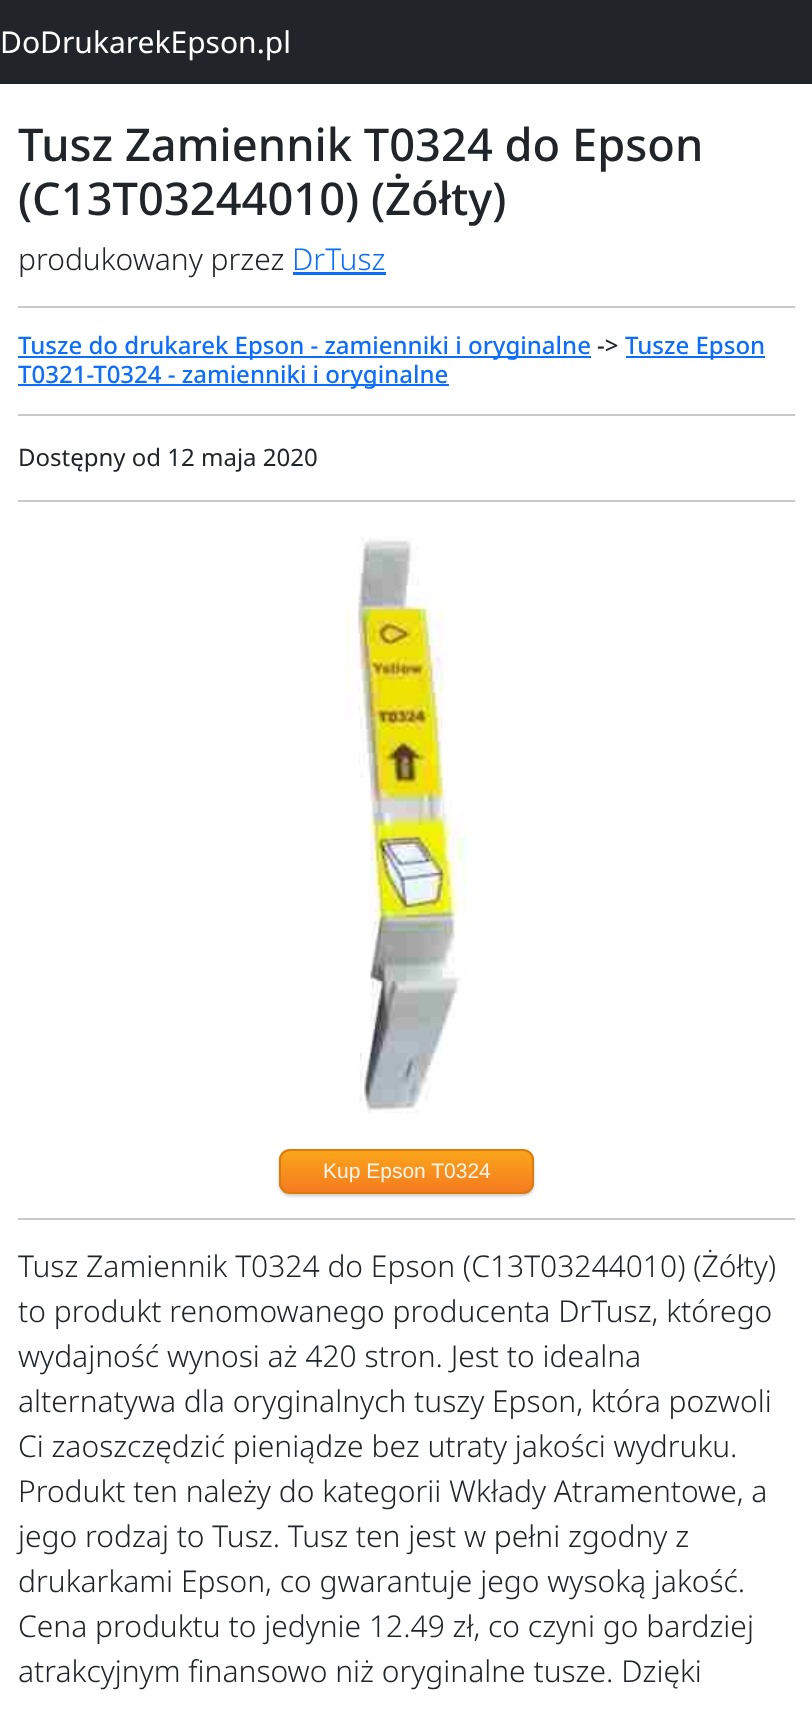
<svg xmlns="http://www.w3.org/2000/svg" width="812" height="1718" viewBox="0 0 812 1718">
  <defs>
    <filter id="blur1" x="-50%" y="-200%" width="200%" height="500%"><feGaussianBlur stdDeviation="1.5"/></filter>
    <clipPath id="clip1"><rect x="279" y="1149" width="255" height="45" rx="11"/></clipPath>
    <linearGradient id="g1" gradientUnits="userSpaceOnUse" x1="281" y1="1151" x2="281" y2="1193"><stop offset="0" stop-color="#faa51a"/><stop offset="1" stop-color="#f47a20"/></linearGradient>
  </defs>
  <rect width="100%" height="100%" fill="#ffffff"/>
  <rect x="0" y="0" width="812" height="84" fill="#212529"/>
  <text x="0" y="53" font-family="Noto Sans" font-size="30" fill="#ffffff">DoDrukarekEpson.pl</text>
  <text x="18" y="161" font-family="Noto Sans" font-size="45.25" font-weight="500" fill="#212529">Tusz Zamiennik T0324 do Epson</text>
  <text x="18" y="215" font-family="Noto Sans" font-size="45.25" font-weight="500" fill="#212529">(C13T03244010) (Żółty)</text>
  <text x="18" y="270" font-family="Noto Sans" font-size="30" font-weight="300" fill="#212529">produkowany przez</text>
  <text x="292" y="270" font-family="Noto Sans" font-size="30" font-weight="300" fill="#0d6efd">DrTusz</text>
  <rect x="293" y="272" width="93" height="3" fill="#0d6efd"/>
  <rect x="18" y="306" width="777" height="2" fill="#c8c9ca"/>
  <rect x="18" y="356" width="573" height="2" fill="#0d6efd"/>
  <text x="18" y="354" font-family="Noto Sans" font-size="24" font-weight="500" fill="#0d6efd">Tusze do drukarek Epson - zamienniki i oryginalne</text>
  <text x="597" y="354" font-family="Noto Sans" font-size="24" font-weight="500" fill="#212529">-&gt;</text>
  <rect x="626" y="356" width="139" height="2" fill="#0d6efd"/>
  <text x="625" y="354" font-family="Noto Sans" font-size="24" font-weight="500" fill="#0d6efd">Tusze Epson</text>
  <rect x="18" y="384" width="431" height="2" fill="#0d6efd"/>
  <text x="18" y="383" font-family="Noto Sans" font-size="24" font-weight="500" fill="#0d6efd">T0321-T0324 - zamienniki i oryginalne</text>
  <rect x="18" y="414" width="777" height="2" fill="#c8c9ca"/>
  <text x="18" y="466" font-family="Noto Sans" font-size="24" fill="#212529">Dostępny od 12 maja 2020</text>
  <rect x="18" y="500" width="777" height="2" fill="#c8c9ca"/>
  <image x="345" y="537" width="123" height="576" href="img1.png"/>
  <rect x="279" y="1151" width="255" height="45" rx="11" fill="#000000" fill-opacity="0.2" filter="url(#blur1)"/>
  <g clip-path="url(#clip1)">
    <rect x="279" y="1151" width="255" height="42" fill="url(#g1)"/>
  </g>
  <rect x="280" y="1150" width="253" height="43" rx="10" fill="none" stroke="#da7c0c" stroke-width="2"/>
  <text x="323" y="1178" font-family="Liberation Sans" font-size="21" fill="#fef4e9">Kup Epson T0324</text>
  <rect x="18" y="1218" width="777" height="2" fill="#c8c9ca"/>
  <text x="18" y="1277" font-family="Noto Sans" font-size="30" font-weight="300" fill="#212529">Tusz Zamiennik T0324 do Epson (C13T03244010) (Żółty)</text>
  <text x="18" y="1322" font-family="Noto Sans" font-size="30" font-weight="300" fill="#212529">to produkt renomowanego producenta DrTusz, którego</text>
  <text x="18" y="1367" font-family="Noto Sans" font-size="30" font-weight="300" fill="#212529">wydajność wynosi aż 420 stron. Jest to idealna</text>
  <text x="18" y="1412" font-family="Noto Sans" font-size="30" font-weight="300" fill="#212529">alternatywa dla oryginalnych tuszy Epson, która pozwoli</text>
  <text x="18" y="1457" font-family="Noto Sans" font-size="30" font-weight="300" fill="#212529">Ci zaoszczędzić pieniądze bez utraty jakości wydruku.</text>
  <text x="18" y="1502" font-family="Noto Sans" font-size="30" font-weight="300" fill="#212529">Produkt ten należy do kategorii Wkłady Atramentowe, a</text>
  <text x="18" y="1547" font-family="Noto Sans" font-size="30" font-weight="300" fill="#212529">jego rodzaj to Tusz. Tusz ten jest w pełni zgodny z</text>
  <text x="18" y="1592" font-family="Noto Sans" font-size="30" font-weight="300" fill="#212529">drukarkami Epson, co gwarantuje jego wysoką jakość.</text>
  <text x="18" y="1637" font-family="Noto Sans" font-size="30" font-weight="300" fill="#212529">Cena produktu to jedynie 12.49 zł, co czyni go bardziej</text>
  <text x="18" y="1682" font-family="Noto Sans" font-size="30" font-weight="300" fill="#212529">atrakcyjnym finansowo niż oryginalne tusze. Dzięki</text>
</svg>
